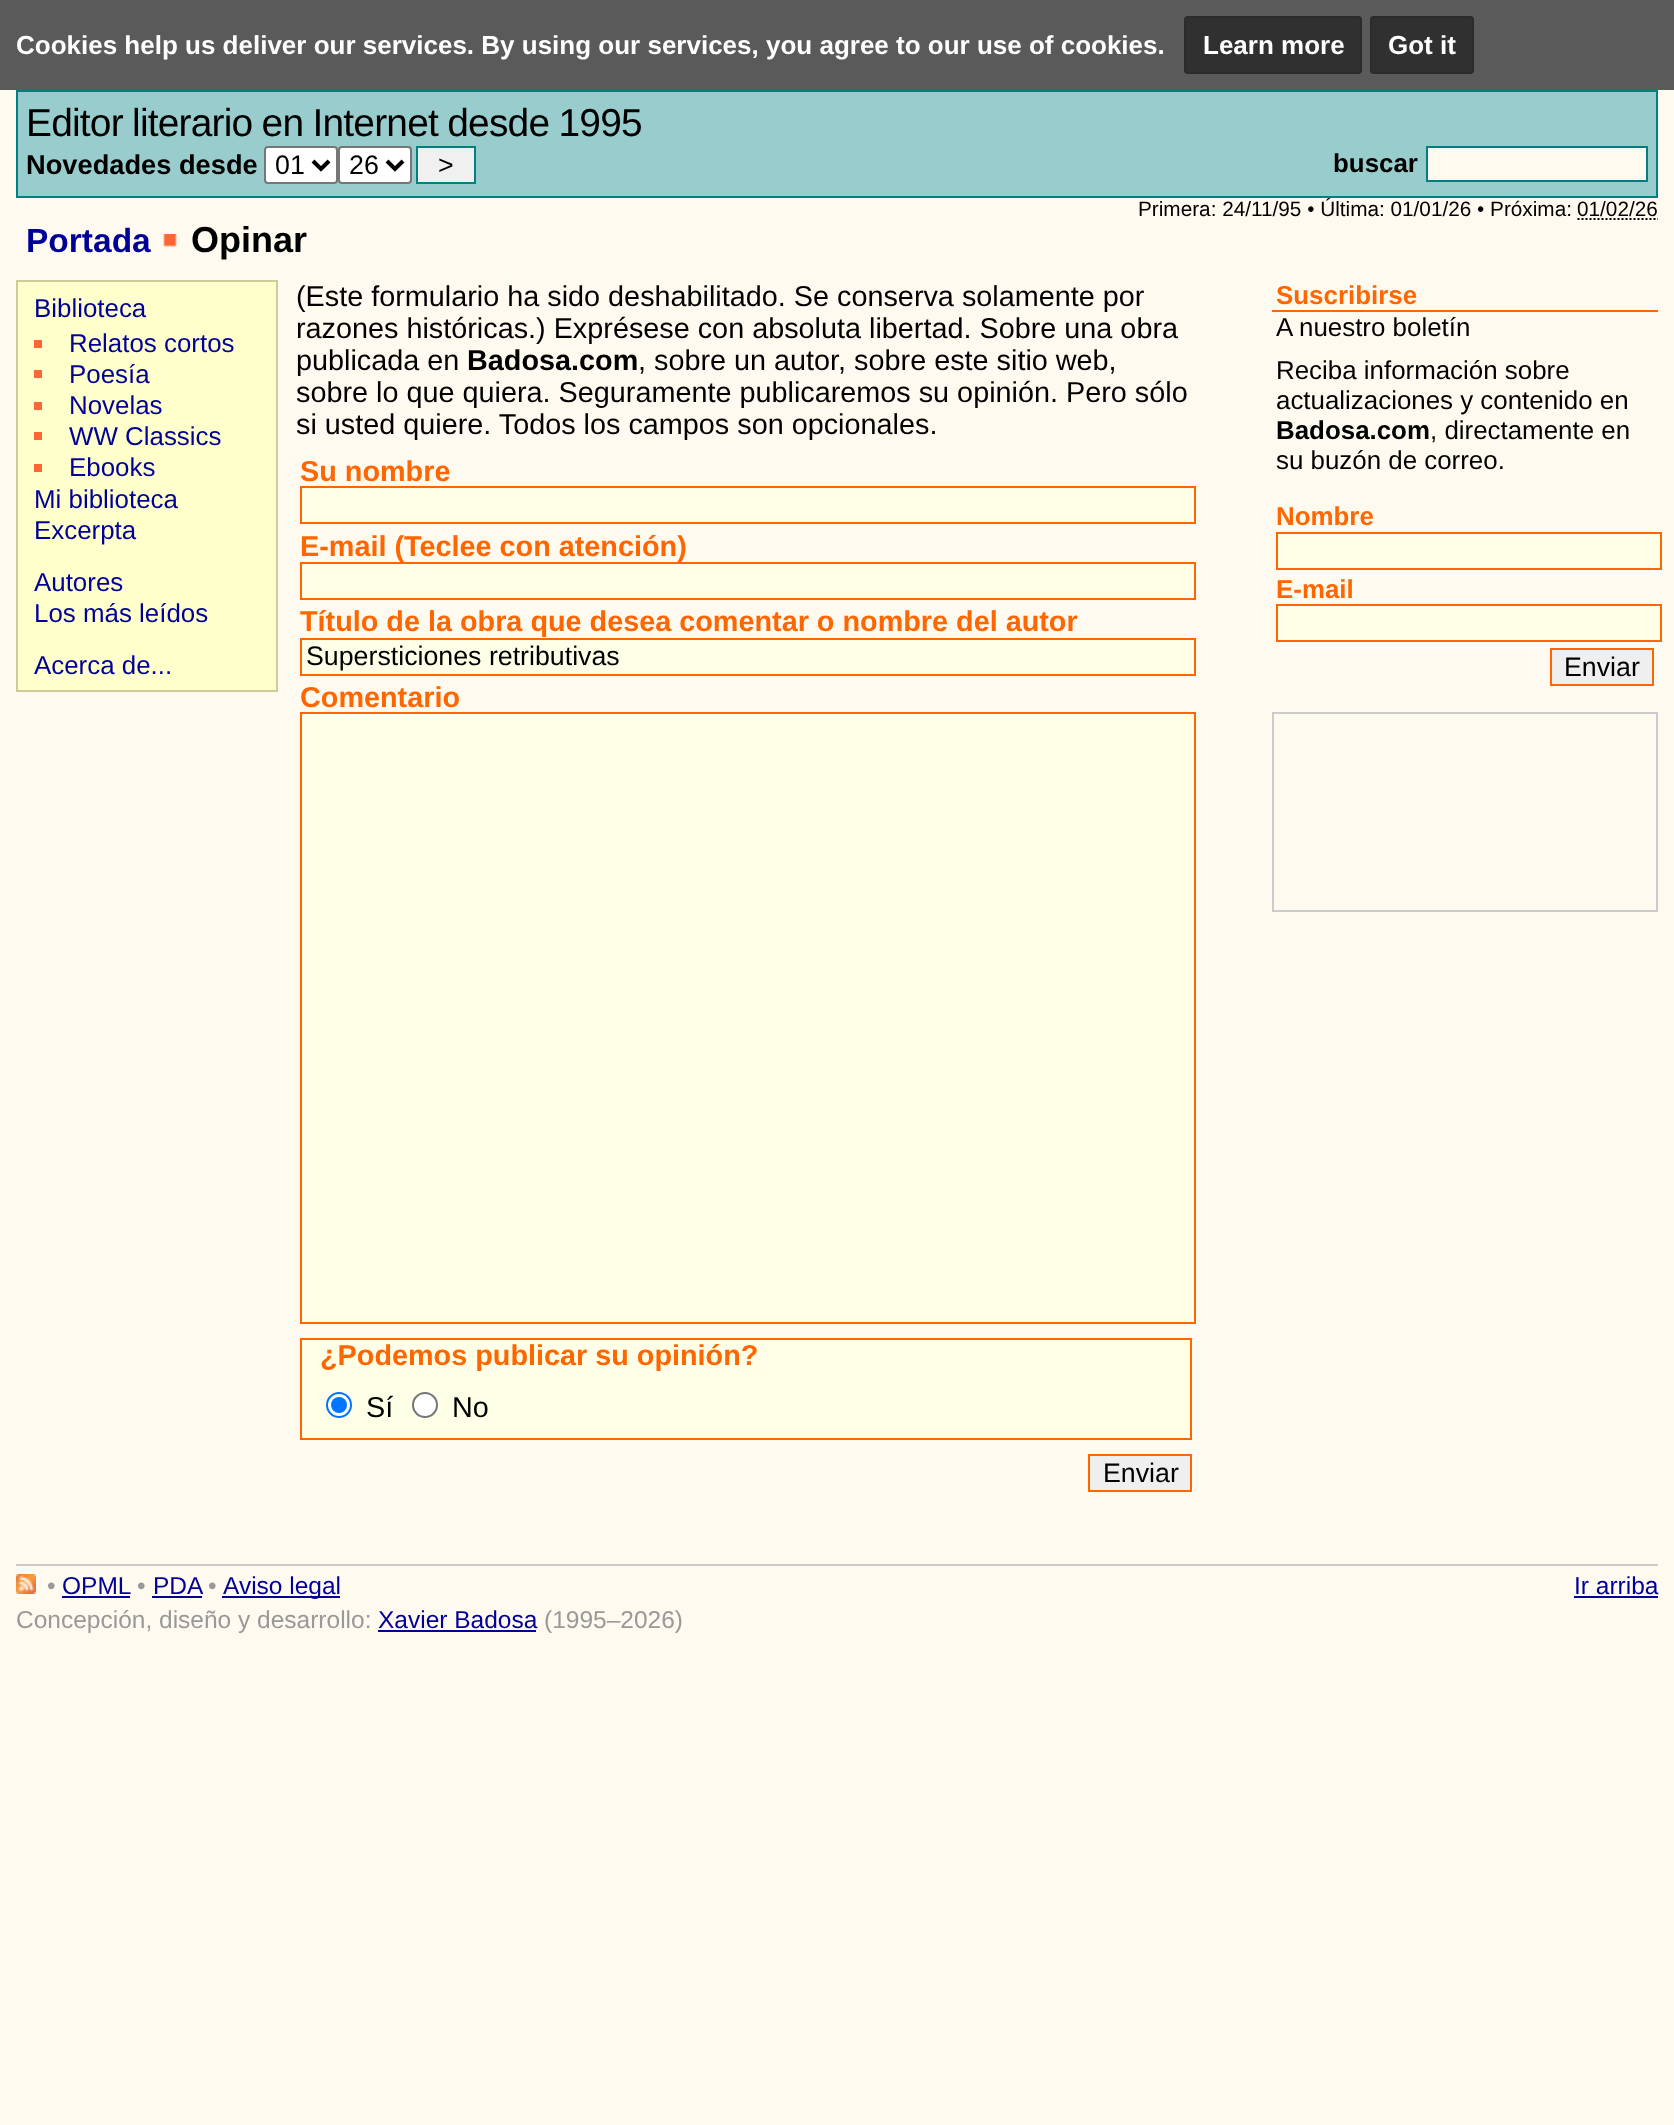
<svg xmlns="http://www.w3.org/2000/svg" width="1674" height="2125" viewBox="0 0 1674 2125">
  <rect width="100%" height="100%" fill="#fffaf0"/>
  <rect x="0" y="0" width="1674" height="90" fill="#5a5a5a"/>
  <text x="16" y="54" font-family="Liberation Sans" font-size="26" font-weight="bold" fill="#ffffff">Cookies help us deliver our services. By using our services, you agree to our use of cookies.</text>
  <rect x="1184" y="16" width="178" height="58" rx="4" fill="#303030"/>
  <rect x="1185" y="17" width="176" height="56" rx="3" fill="none" stroke="#000000" stroke-opacity="0.1" stroke-width="2"/>
  <text x="1203" y="54" font-family="Liberation Sans" font-size="26" font-weight="bold" fill="#ffffff">Learn more</text>
  <rect x="1370" y="16" width="104" height="58" rx="4" fill="#303030"/>
  <rect x="1371" y="17" width="102" height="56" rx="3" fill="none" stroke="#000000" stroke-opacity="0.1" stroke-width="2"/>
  <text x="1388" y="54" font-family="Liberation Sans" font-size="26" font-weight="bold" fill="#ffffff">Got it</text>
  <rect x="17" y="91" width="1640" height="106" fill="#99cccc" stroke="#008080" stroke-width="2"/>
  <text x="26" y="136" word-spacing="-0.75" font-family="Liberation Sans" font-size="38.9" letter-spacing="-0.8" fill="#000000">Editor literario en Internet desde 1995</text>
  <text x="26" y="174" font-family="Liberation Sans" font-size="27.25" font-weight="bold" fill="#000000">Novedades desde</text>
  <rect x="265" y="147" width="72" height="36" rx="3" fill="#ffffff" stroke="#767676" stroke-width="2"/>
  <path d="M313 161L321 169L329 161" fill="none" stroke="#000000" stroke-width="4"/>
  <text x="275" y="174" font-family="Liberation Sans" font-size="26.75" fill="#000000">01</text>
  <rect x="339" y="147" width="72" height="36" rx="3" fill="#ffffff" stroke="#767676" stroke-width="2"/>
  <path d="M387 161L395 169L403 161" fill="none" stroke="#000000" stroke-width="4"/>
  <text x="349" y="174" font-family="Liberation Sans" font-size="26.75" fill="#000000">26</text>
  <rect x="417" y="147" width="58" height="36" fill="#f0f0f0" stroke="#008080" stroke-width="2"/>
  <text x="438" y="174" font-family="Liberation Sans" font-size="26.75" fill="#000000">&gt;</text>
  <text x="1333" y="172" font-family="Liberation Sans" font-size="25.9" font-weight="bold" fill="#000000">buscar</text>
  <rect x="1427" y="147" width="220" height="34" fill="#fffaf0" stroke="#008080" stroke-width="2"/>
  <text x="1138" y="216" font-family="Liberation Sans" font-size="20.75" fill="#000000">Primera: 24/11/95 • Última: 01/01/26 • Próxima:</text>
  <text x="1577" y="216" font-family="Liberation Sans" font-size="20.75" fill="#000000">01/02/26</text>
  <path d="M1577.5 219H1658" fill="none" stroke="#000000" stroke-width="2" stroke-dasharray="2 2"/>
  <text x="26" y="252" font-family="Liberation Sans" font-size="33.5" font-weight="bold" fill="#000099">Portada</text>
  <image x="163" y="234" width="14" height="13" href="img1.png"/>
  <text x="191" y="252" font-family="Liberation Sans" font-size="36" font-weight="bold" fill="#000000">Opinar</text>
  <rect x="17" y="281" width="260" height="410" fill="#ffffcc" stroke="#cccc99" stroke-width="2"/>
  <text x="34" y="317" font-family="Liberation Sans" font-size="25.9" fill="#000099">Biblioteca</text>
  <rect x="34" y="340" width="8" height="8" fill="#ff6633"/>
  <text x="69" y="352" font-family="Liberation Sans" font-size="25.9" fill="#000099">Relatos cortos</text>
  <rect x="34" y="370" width="8" height="8" fill="#ff6633"/>
  <text x="69" y="383" font-family="Liberation Sans" font-size="25.9" fill="#000099">Poesía</text>
  <rect x="34" y="402" width="8" height="8" fill="#ff6633"/>
  <text x="69" y="414" font-family="Liberation Sans" font-size="25.9" fill="#000099">Novelas</text>
  <rect x="34" y="432" width="8" height="8" fill="#ff6633"/>
  <text x="69" y="445" font-family="Liberation Sans" font-size="25.9" fill="#000099">WW Classics</text>
  <rect x="34" y="464" width="8" height="8" fill="#ff6633"/>
  <text x="69" y="476" font-family="Liberation Sans" font-size="25.9" fill="#000099">Ebooks</text>
  <text x="34" y="508" font-family="Liberation Sans" font-size="25.9" fill="#000099">Mi biblioteca</text>
  <text x="34" y="539" font-family="Liberation Sans" font-size="25.9" fill="#000099">Excerpta</text>
  <text x="34" y="591" font-family="Liberation Sans" font-size="25.9" fill="#000099">Autores</text>
  <text x="34" y="622" font-family="Liberation Sans" font-size="25.9" fill="#000099">Los más leídos</text>
  <text x="34" y="674" font-family="Liberation Sans" font-size="25.9" fill="#000099">Acerca de...</text>
  <text x="296" y="306" font-family="Liberation Sans" font-size="28.8" fill="#000000">(Este formulario ha sido deshabilitado. Se conserva solamente por</text>
  <text x="296" y="338" font-family="Liberation Sans" font-size="28.8" fill="#000000">razones históricas.) Exprésese con absoluta libertad. Sobre una obra</text>
  <text x="296" y="370" font-family="Liberation Sans" font-size="28.8" fill="#000000">publicada en</text>
  <text x="467" y="370" font-family="Liberation Sans" font-size="28.8" font-weight="bold" fill="#000000">Badosa.com</text>
  <text x="638" y="370" font-family="Liberation Sans" font-size="28.8" fill="#000000">, sobre un autor, sobre este sitio web,</text>
  <text x="296" y="402" font-family="Liberation Sans" font-size="28.8" fill="#000000">sobre lo que quiera. Seguramente publicaremos su opinión. Pero sólo</text>
  <text x="296" y="434" font-family="Liberation Sans" font-size="28.8" fill="#000000">si usted quiere. Todos los campos son opcionales.</text>
  <text x="300" y="481" font-family="Liberation Sans" font-size="28.8" font-weight="bold" fill="#ff6600">Su nombre</text>
  <rect x="301" y="487" width="894" height="36" fill="#ffffe7" stroke="#ff6600" stroke-width="2"/>
  <text x="300" y="556" font-family="Liberation Sans" font-size="28.8" font-weight="bold" fill="#ff6600">E-mail (Teclee con atención)</text>
  <rect x="301" y="563" width="894" height="36" fill="#ffffe7" stroke="#ff6600" stroke-width="2"/>
  <text x="300" y="631" font-family="Liberation Sans" font-size="28.8" font-weight="bold" fill="#ff6600">Título de la obra que desea comentar o nombre del autor</text>
  <rect x="301" y="639" width="894" height="36" fill="#ffffe7" stroke="#ff6600" stroke-width="2"/>
  <text x="306" y="665" font-family="Liberation Sans" font-size="26.75" fill="#000000">Supersticiones retributivas</text>
  <text x="300" y="707" font-family="Liberation Sans" font-size="28.8" font-weight="bold" fill="#ff6600">Comentario</text>
  <rect x="301" y="713" width="894" height="610" fill="#ffffe7" stroke="#ff6600" stroke-width="2"/>
  <rect x="301" y="1339" width="890" height="100" fill="#ffffe7" stroke="#ff6600" stroke-width="2"/>
  <text x="320" y="1365" font-family="Liberation Sans" font-size="28.8" font-weight="bold" fill="#ff6600">¿Podemos publicar su opinión?</text>
  <circle cx="339" cy="1405" r="12" fill="#ffffff" stroke="#0075ff" stroke-width="2"/>
  <circle cx="339" cy="1405" r="8" fill="#0075ff"/>
  <text x="366" y="1417" font-family="Liberation Sans" font-size="28.8" fill="#000000">Sí</text>
  <circle cx="425" cy="1405" r="12" fill="#ffffff" stroke="#767676" stroke-width="2"/>
  <text x="452" y="1417" font-family="Liberation Sans" font-size="28.8" fill="#000000">No</text>
  <rect x="1089" y="1455" width="102" height="36" fill="#efefef" stroke="#ff6600" stroke-width="2"/>
  <text x="1103" y="1482" font-family="Liberation Sans" font-size="26.75" fill="#000000">Enviar</text>
  <rect x="1272" y="310" width="386" height="2" fill="#ff6600"/>
  <text x="1276" y="304" font-family="Liberation Sans" font-size="25.9" font-weight="bold" fill="#ff6600">Suscribirse</text>
  <text x="1276" y="336" font-family="Liberation Sans" font-size="25.9" fill="#000000">A nuestro boletín</text>
  <text x="1276" y="379" font-family="Liberation Sans" font-size="25.9" fill="#000000">Reciba información sobre</text>
  <text x="1276" y="409" font-family="Liberation Sans" font-size="25.9" fill="#000000">actualizaciones y contenido en</text>
  <text x="1276" y="439" font-family="Liberation Sans" font-size="25.9" font-weight="bold" fill="#000000">Badosa.com</text>
  <text x="1430" y="439" font-family="Liberation Sans" font-size="25.9" fill="#000000">, directamente en</text>
  <text x="1276" y="469" font-family="Liberation Sans" font-size="25.9" fill="#000000">su buzón de correo.</text>
  <text x="1276" y="525" font-family="Liberation Sans" font-size="25.9" font-weight="bold" fill="#ff6600">Nombre</text>
  <rect x="1277" y="533" width="384" height="36" fill="#ffffe7" stroke="#ff6600" stroke-width="2"/>
  <text x="1276" y="598" font-family="Liberation Sans" font-size="25.9" font-weight="bold" fill="#ff6600">E-mail</text>
  <rect x="1277" y="605" width="384" height="36" fill="#ffffe7" stroke="#ff6600" stroke-width="2"/>
  <rect x="1551" y="649" width="102" height="36" fill="#efefef" stroke="#ff6600" stroke-width="2"/>
  <text x="1564" y="676" font-family="Liberation Sans" font-size="26.75" fill="#000000">Enviar</text>
  <rect x="1273" y="713" width="384" height="198" fill="none" stroke="#cccccc" stroke-width="2"/>
  <rect x="16" y="1564" width="1642" height="2" fill="#cccccc"/>
  <image x="16" y="1574" width="20" height="20" href="img2.png"/>
  <text x="47" y="1594" font-family="Liberation Sans" font-size="24.5" fill="#999999">•</text>
  <text x="62" y="1594" font-family="Liberation Sans" font-size="24.5" fill="#000099">OPML</text>
  <rect x="62" y="1596" width="68" height="2" fill="#000099"/>
  <text x="137" y="1594" font-family="Liberation Sans" font-size="24.5" fill="#999999">•</text>
  <text x="153" y="1594" font-family="Liberation Sans" font-size="24.5" fill="#000099">PDA</text>
  <rect x="152" y="1596" width="50" height="2" fill="#000099"/>
  <text x="208" y="1594" font-family="Liberation Sans" font-size="24.5" fill="#999999">•</text>
  <rect x="222" y="1596" width="118" height="2" fill="#000099"/>
  <text x="223" y="1594" font-family="Liberation Sans" font-size="24.5" fill="#000099">Aviso legal</text>
  <text x="1574" y="1594" font-family="Liberation Sans" font-size="24.5" fill="#000099">Ir arriba</text>
  <rect x="1574" y="1596" width="84" height="2" fill="#000099"/>
  <text x="16" y="1628" font-family="Liberation Sans" font-size="24.5" fill="#999999">Concepción, diseño y desarrollo:</text>
  <text x="378" y="1628" font-family="Liberation Sans" font-size="24.5" fill="#000099">Xavier Badosa</text>
  <rect x="378" y="1630" width="158" height="2" fill="#000099"/>
  <text x="544" y="1628" font-family="Liberation Sans" font-size="24.5" fill="#999999">(1995–2026)</text>
</svg>
